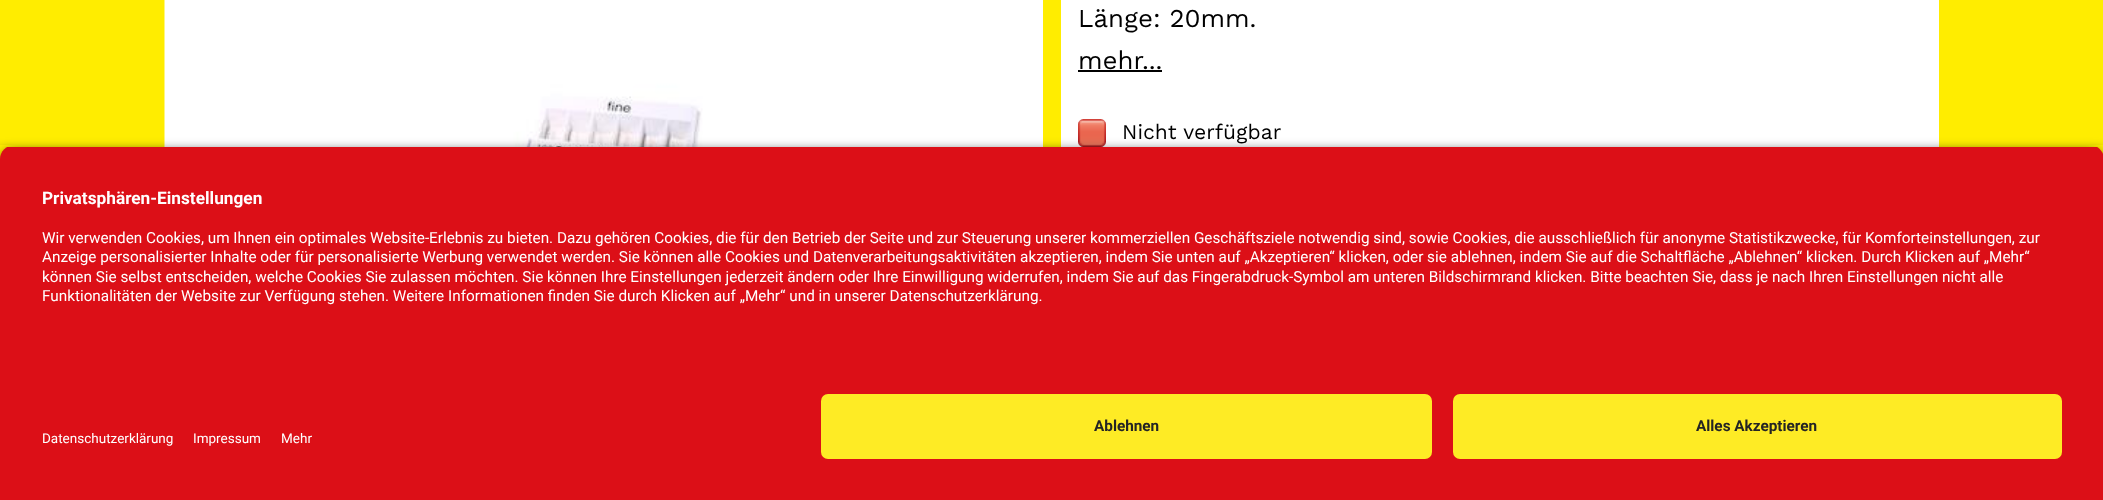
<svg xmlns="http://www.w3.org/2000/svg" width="2103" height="500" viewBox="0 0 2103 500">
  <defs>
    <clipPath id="clip1"><path d="M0 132H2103V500H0ZM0 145H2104V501H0Z" clip-rule="evenodd"/></clipPath>
    <filter id="blur1" x="-50%" y="-200%" width="200%" height="500%"><feGaussianBlur stdDeviation="6"/></filter>
    <clipPath id="clip2"><rect x="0" y="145" width="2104" height="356"/></clipPath>
    <clipPath id="clip3"><path d="M14 145H2090C2097.5 145 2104 151.5 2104 159V380H0V159C0 151.5 6.5 145 14 145Z"/></clipPath>
  </defs>
  <rect width="100%" height="100%" fill="#ffed00"/>
  <rect x="703" y="0" width="340" height="147" fill="#ffffff"/>
  <image x="164" y="0" width="539" height="147" href="img1.png"/>
  <rect x="1061" y="0" width="878" height="147" fill="#ffffff"/>
  <text x="1078" y="27" font-family="Work Sans" font-size="25.75" fill="#000000">Länge: 20mm.</text>
  <text x="1078" y="69" font-family="Work Sans" font-size="25.75" fill="#000000">mehr...</text>
  <rect x="1078" y="70" width="84" height="2" fill="#000000"/>
  <image x="1078" y="119" width="28" height="28" href="img2.png"/>
  <text x="1122" y="139" font-family="Work Sans" font-size="21" fill="#000000">Nicht verfügbar</text>
  <g clip-path="url(#clip1)">
    <rect x="0" y="151" width="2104" height="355" fill="#000000" fill-opacity="0.8" filter="url(#blur1)"/>
  </g>
  <g clip-path="url(#clip2)">
    <rect x="0" y="151" width="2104" height="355" rx="14" fill="#000000" fill-opacity="0.8" filter="url(#blur1)"/>
  </g>
  <g clip-path="url(#clip3)">
    <rect x="0" y="147" width="2103" height="233" fill="#dc0f17"/>
  </g>
  <text x="42" y="204" font-family="Roboto" font-size="17.25" font-weight="bold" fill="#ffffff">Privatsphären-Einstellungen</text>
  <text x="42" y="243" font-family="Roboto" font-size="15.31" fill="#ffffff">Wir verwenden Cookies, um Ihnen ein optimales Website-Erlebnis zu bieten. Dazu gehören Cookies, die für den Betrieb der Seite und zur Steuerung unserer kommerziellen Geschäftsziele notwendig sind, sowie Cookies, die ausschließlich für anonyme Statistikzwecke, für Komforteinstellungen, zur</text>
  <text x="42" y="262" font-family="Roboto" font-size="15.31" fill="#ffffff">Anzeige personalisierter Inhalte oder für personalisierte Werbung verwendet werden. Sie können alle Cookies und Datenverarbeitungsaktivitäten akzeptieren, indem Sie unten auf „Akzeptieren“ klicken, oder sie ablehnen, indem Sie auf die Schaltfläche „Ablehnen“ klicken. Durch Klicken auf „Mehr“</text>
  <text x="42" y="282" font-family="Roboto" font-size="15.31" fill="#ffffff">können Sie selbst entscheiden, welche Cookies Sie zulassen möchten. Sie können Ihre Einstellungen jederzeit ändern oder Ihre Einwilligung widerrufen, indem Sie auf das Fingerabdruck-Symbol am unteren Bildschirmrand klicken. Bitte beachten Sie, dass je nach Ihren Einstellungen nicht alle</text>
  <text x="42" y="301" font-family="Roboto" font-size="15.31" fill="#ffffff">Funktionalitäten der Website zur Verfügung stehen. Weitere Informationen finden Sie durch Klicken auf „Mehr“ und in unserer Datenschutzerklärung.</text>
  <rect x="0" y="380" width="2103" height="120" fill="#dc0f17"/>
  <rect x="821" y="394" width="611" height="65" rx="7" fill="#feeb25"/>
  <text x="1094" y="431" font-family="Roboto" font-size="15.31" font-weight="bold" fill="#242424">Ablehnen</text>
  <rect x="1453" y="394" width="609" height="65" rx="7" fill="#feeb25"/>
  <text x="1696" y="431" font-family="Roboto" font-size="15.31" font-weight="bold" fill="#242424">Alles Akzeptieren</text>
  <text x="42" y="443" font-family="Roboto" font-size="13.5" fill="#ffffff">Datenschutzerklärung</text>
  <text x="193" y="443" font-family="Roboto" font-size="13.5" fill="#ffffff">Impressum</text>
  <text x="281" y="443" font-family="Roboto" font-size="13.5" fill="#ffffff">Mehr</text>
</svg>
